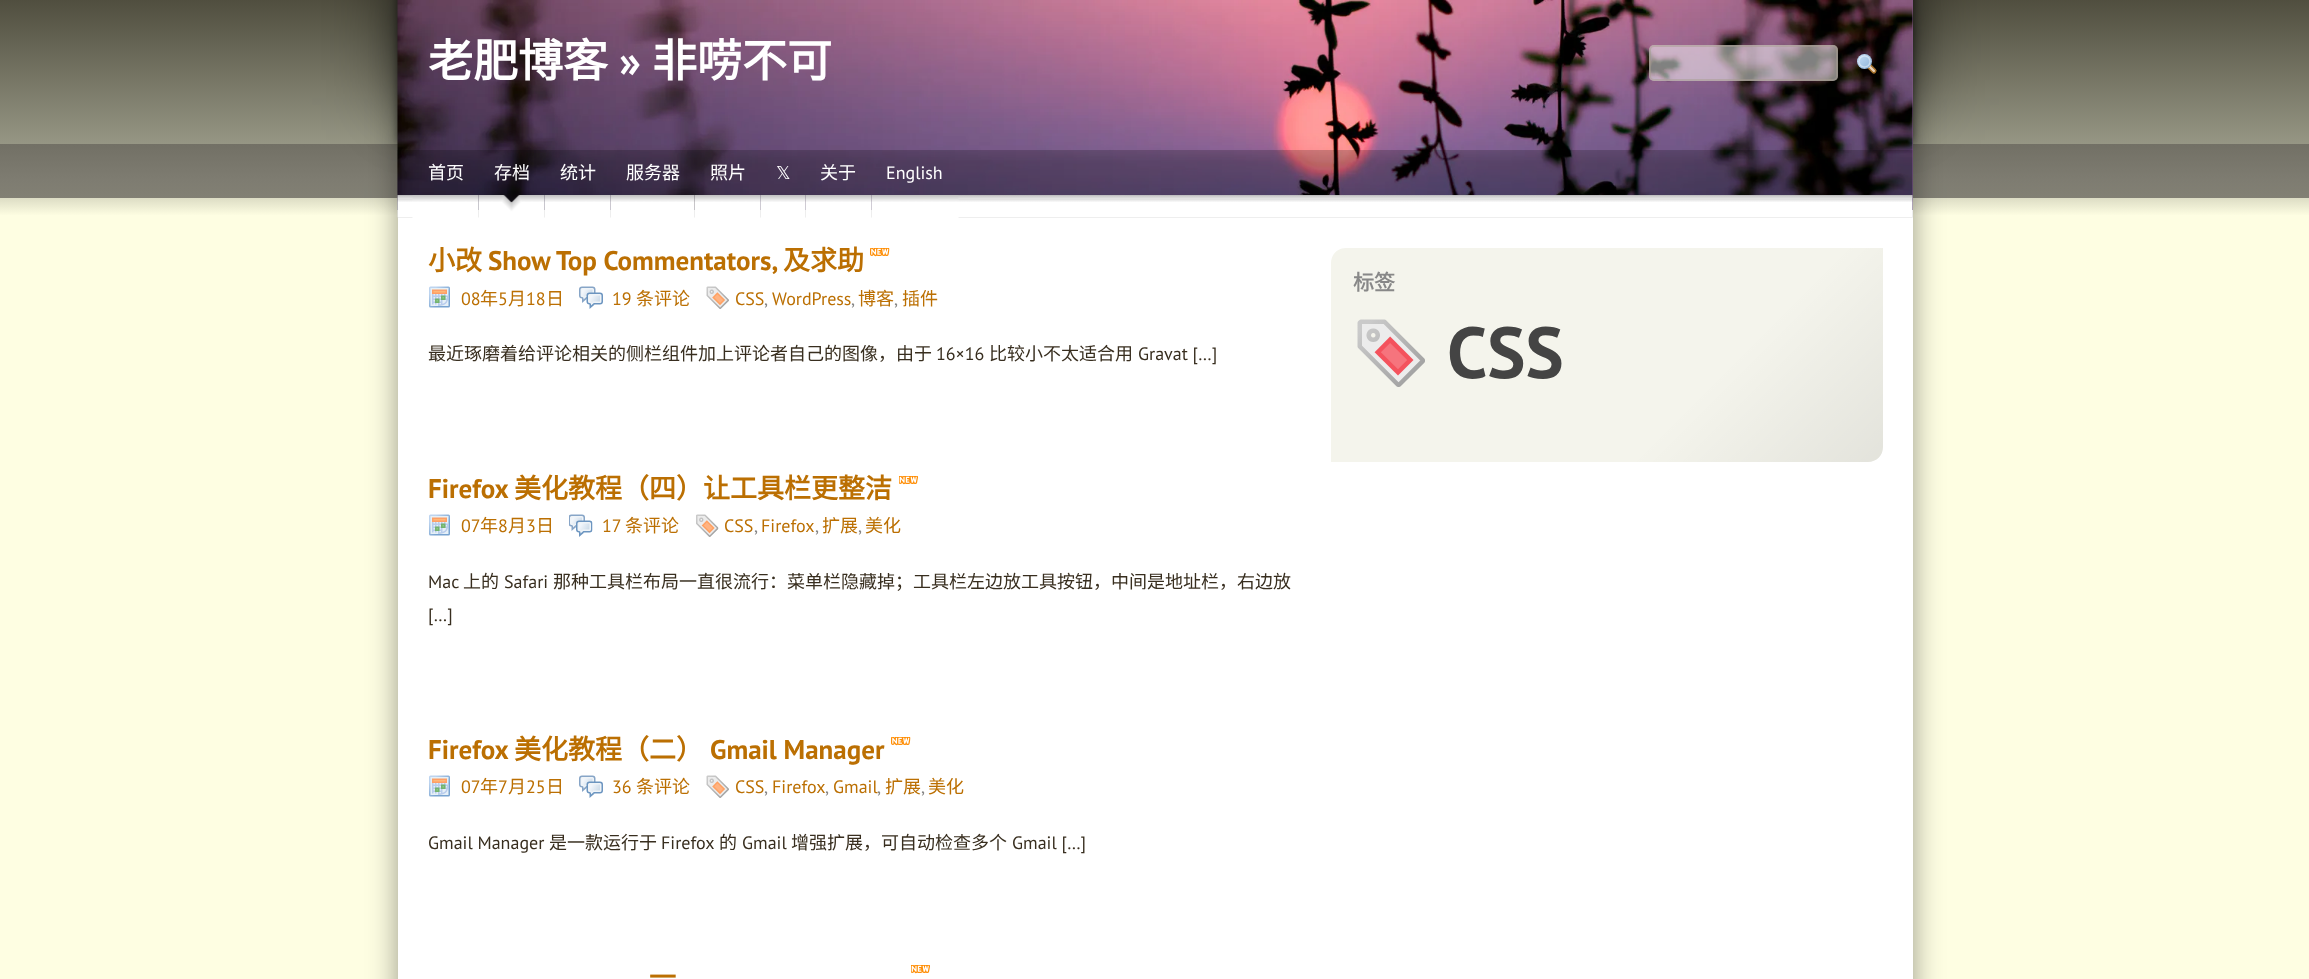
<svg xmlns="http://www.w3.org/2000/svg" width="2309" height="979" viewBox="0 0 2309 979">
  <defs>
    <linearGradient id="g1" gradientUnits="userSpaceOnUse" x1="1155" y1="0" x2="1155" y2="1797"><stop offset="0" stop-color="#504e3f"/><stop offset="0.08" stop-color="#969684"/><stop offset="0.08" stop-color="#727065"/><stop offset="0.1" stop-color="#7e7c71"/><stop offset="0.11" stop-color="#828074"/><stop offset="0.11" stop-color="#989888"/><stop offset="0.11" stop-color="#dcdcc4"/><stop offset="0.12" stop-color="#fefee2"/></linearGradient>
    <filter id="blur1" x="-50%" y="-200%" width="200%" height="500%"><feGaussianBlur stdDeviation="15"/></filter>
    <filter id="blur2" x="-50%" y="-200%" width="200%" height="500%"><feGaussianBlur stdDeviation="4"/></filter>
    <filter id="blur3" x="-50%" y="-200%" width="200%" height="500%"><feGaussianBlur stdDeviation="37.5"/></filter>
    <linearGradient id="g2" gradientUnits="userSpaceOnUse" x1="1415" y1="163" x2="1798" y2="546"><stop offset="0.67" stop-color="#000000" stop-opacity="0"/><stop offset="1" stop-color="#000000" stop-opacity="0.07"/></linearGradient>
  </defs>
  <rect width="100%" height="100%" fill="#ffffff"/>
  <rect x="0" y="0" width="2309" height="979" fill="url(#g1)"/>
  <rect x="398" y="0" width="1515" height="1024" fill="#000000" fill-opacity="0.4" filter="url(#blur1)"/>
  <rect x="398" y="210" width="1515" height="769" fill="#ffffff"/>
  <rect x="398" y="-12" width="1515" height="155" fill="#000000" fill-opacity="0.53" filter="url(#blur2)"/>
  <rect x="398" y="-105" width="1515" height="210" fill="#000000" fill-opacity="0.53" filter="url(#blur3)"/>
  <rect x="1912" y="0" width="1" height="210" fill="#825d8a"/>
  <image x="397" y="0" width="1516" height="210" href="img1.png"/>
  <text x="428" y="77" font-family="Noto Sans CJK SC" font-size="45" font-weight="bold" fill="#ffffff">老肥博客</text>
  <text x="619" y="77" font-family="PT Sans" font-size="45" font-weight="bold" fill="#ffffff">»</text>
  <text x="652" y="77" font-family="Noto Sans CJK SC" font-size="45" font-weight="bold" fill="#ffffff">非唠不可</text>
  <image x="1857" y="54" width="20" height="20" href="img2.png"/>
  <rect x="1649" y="45" width="189" height="36" rx="5" fill="#ffffff" fill-opacity="0.5"/>
  <rect x="1650" y="46" width="187" height="34" rx="4" fill="none" stroke="#a79d8f" stroke-opacity="0.5" stroke-width="2"/>
  <image x="397" y="150" width="1516" height="68" href="img3.png"/>
  <image x="412" y="195" width="67" height="23" href="img4.png"/>
  <text x="428" y="179" font-family="Noto Sans CJK SC" font-size="18" fill="#ffffff">首页</text>
  <image x="478" y="195" width="67" height="23" href="img5.png"/>
  <text x="494" y="179" font-family="Noto Sans CJK SC" font-size="18" fill="#ffffff">存档</text>
  <image x="544" y="195" width="67" height="23" href="img6.png"/>
  <text x="560" y="179" font-family="Noto Sans CJK SC" font-size="18" fill="#ffffff">统计</text>
  <image x="610" y="195" width="85" height="23" href="img7.png"/>
  <text x="626" y="179" font-family="Noto Sans CJK SC" font-size="18" fill="#ffffff">服务器</text>
  <image x="694" y="195" width="67" height="23" href="img8.png"/>
  <text x="710" y="179" font-family="Noto Sans CJK SC" font-size="18" fill="#ffffff">照片</text>
  <image x="760" y="195" width="46" height="23" href="img9.png"/>
  <text x="776" y="179" font-family="DejaVu Sans" font-size="18" fill="#ffffff">𝕏</text>
  <image x="805" y="195" width="67" height="23" href="img10.png"/>
  <text x="820" y="179" font-family="Noto Sans CJK SC" font-size="18" fill="#ffffff">关于</text>
  <image x="871" y="195" width="88" height="23" href="img11.png"/>
  <text x="886" y="179" font-family="PT Sans" font-size="18" fill="#ffffff">English</text>
  <text x="428" y="270" font-family="Noto Sans CJK SC" font-size="27" font-weight="bold" fill="#bb6f02">小改</text>
  <text x="488" y="270" font-family="PT Sans" font-size="27" font-weight="bold" fill="#bb6f02">Show Top Commentators,</text>
  <text x="783" y="270" font-family="Noto Sans CJK SC" font-size="27" font-weight="bold" fill="#bb6f02">及求助</text>
  <image x="870" y="248" width="20" height="9" href="img12.png"/>
  <image x="429" y="286" width="21" height="22" href="img13.png"/>
  <text x="461" y="305" font-family="PT Sans" font-size="18" fill="#bb6f02">08</text>
  <text x="480" y="305" font-family="Noto Sans CJK SC" font-size="18" fill="#bb6f02">年</text>
  <text x="498" y="305" font-family="PT Sans" font-size="18" fill="#bb6f02">5</text>
  <text x="508" y="305" font-family="Noto Sans CJK SC" font-size="18" fill="#bb6f02">月</text>
  <text x="526" y="305" font-family="PT Sans" font-size="18" fill="#bb6f02">18</text>
  <text x="546" y="305" font-family="Noto Sans CJK SC" font-size="18" fill="#bb6f02">日</text>
  <image x="579" y="286" width="24" height="23" href="img14.png"/>
  <text x="612" y="305" font-family="PT Sans" font-size="18" fill="#bb6f02">19</text>
  <text x="636" y="305" font-family="Noto Sans CJK SC" font-size="18" fill="#bb6f02">条评论</text>
  <image x="706" y="286" width="23" height="23" href="img15.png"/>
  <text x="735" y="305" font-family="PT Sans" font-size="18" fill="#bb6f02">CSS</text>
  <text x="764" y="305" font-family="PT Sans" font-size="18" fill="#888888">,</text>
  <text x="772" y="305" font-family="PT Sans" font-size="18" fill="#bb6f02">WordPress</text>
  <text x="851" y="305" font-family="PT Sans" font-size="18" fill="#888888">,</text>
  <text x="858" y="305" font-family="Noto Sans CJK SC" font-size="18" fill="#bb6f02">博客</text>
  <text x="894" y="305" font-family="PT Sans" font-size="18" fill="#888888">,</text>
  <text x="902" y="305" font-family="Noto Sans CJK SC" font-size="18" fill="#bb6f02">插件</text>
  <text x="428" y="360" font-family="Noto Sans CJK SC" font-size="18" fill="#382e1f">最近琢磨着给评论相关的侧栏组件加上评论者自己的图像，由于</text>
  <text x="936" y="360" font-family="PT Sans" font-size="18" fill="#382e1f">16×16</text>
  <text x="989" y="360" font-family="Noto Sans CJK SC" font-size="18" fill="#382e1f">比较小不太适合用</text>
  <text x="1138" y="360" font-family="PT Sans" font-size="18" fill="#382e1f">Gravat […]</text>
  <text x="428" y="498" font-family="PT Sans" font-size="27" font-weight="bold" fill="#bb6f02">Firefox</text>
  <text x="514" y="498" font-family="Noto Sans CJK SC" font-size="27" font-weight="bold" fill="#bb6f02">美化教程（四）让工具栏更整洁</text>
  <image x="899" y="476" width="19" height="9" href="img16.png"/>
  <image x="429" y="514" width="21" height="22" href="img17.png"/>
  <text x="461" y="532" font-family="PT Sans" font-size="18" fill="#bb6f02">07</text>
  <text x="480" y="532" font-family="Noto Sans CJK SC" font-size="18" fill="#bb6f02">年</text>
  <text x="498" y="532" font-family="PT Sans" font-size="18" fill="#bb6f02">8</text>
  <text x="508" y="532" font-family="Noto Sans CJK SC" font-size="18" fill="#bb6f02">月</text>
  <text x="526" y="532" font-family="PT Sans" font-size="18" fill="#bb6f02">3</text>
  <text x="536" y="532" font-family="Noto Sans CJK SC" font-size="18" fill="#bb6f02">日</text>
  <image x="569" y="514" width="24" height="23" href="img18.png"/>
  <text x="602" y="532" font-family="PT Sans" font-size="18" fill="#bb6f02">17</text>
  <text x="625" y="532" font-family="Noto Sans CJK SC" font-size="18" fill="#bb6f02">条评论</text>
  <image x="696" y="514" width="23" height="23" href="img19.png"/>
  <text x="724" y="532" font-family="PT Sans" font-size="18" fill="#bb6f02">CSS</text>
  <text x="754" y="532" font-family="PT Sans" font-size="18" fill="#888888">,</text>
  <text x="761" y="532" font-family="PT Sans" font-size="18" fill="#bb6f02">Firefox</text>
  <text x="815" y="532" font-family="PT Sans" font-size="18" fill="#888888">,</text>
  <text x="822" y="532" font-family="Noto Sans CJK SC" font-size="18" fill="#bb6f02">扩展</text>
  <text x="858" y="532" font-family="PT Sans" font-size="18" fill="#888888">,</text>
  <text x="865" y="532" font-family="Noto Sans CJK SC" font-size="18" fill="#bb6f02">美化</text>
  <text x="428" y="588" font-family="PT Sans" font-size="18" fill="#382e1f">Mac</text>
  <text x="463" y="588" font-family="Noto Sans CJK SC" font-size="18" fill="#382e1f">上的</text>
  <text x="504" y="588" font-family="PT Sans" font-size="18" fill="#382e1f">Safari</text>
  <text x="553" y="588" font-family="Noto Sans CJK SC" font-size="18" fill="#382e1f">那种工具栏布局一直很流行：菜单栏隐藏掉；工具栏左边放工具按钮，中间是地址栏，右边放</text>
  <text x="428" y="621" font-family="PT Sans" font-size="18" fill="#382e1f">[…]</text>
  <text x="428" y="759" font-family="PT Sans" font-size="27" font-weight="bold" fill="#bb6f02">Firefox</text>
  <text x="514" y="759" font-family="Noto Sans CJK SC" font-size="27" font-weight="bold" fill="#bb6f02">美化教程（二）</text>
  <text x="710" y="759" font-family="PT Sans" font-size="27" font-weight="bold" fill="#bb6f02">Gmail Manager</text>
  <image x="891" y="737" width="20" height="9" href="img20.png"/>
  <image x="429" y="775" width="21" height="22" href="img21.png"/>
  <text x="461" y="793" font-family="PT Sans" font-size="18" fill="#bb6f02">07</text>
  <text x="480" y="793" font-family="Noto Sans CJK SC" font-size="18" fill="#bb6f02">年</text>
  <text x="498" y="793" font-family="PT Sans" font-size="18" fill="#bb6f02">7</text>
  <text x="508" y="793" font-family="Noto Sans CJK SC" font-size="18" fill="#bb6f02">月</text>
  <text x="526" y="793" font-family="PT Sans" font-size="18" fill="#bb6f02">25</text>
  <text x="546" y="793" font-family="Noto Sans CJK SC" font-size="18" fill="#bb6f02">日</text>
  <image x="579" y="775" width="24" height="23" href="img22.png"/>
  <text x="612" y="793" font-family="PT Sans" font-size="18" fill="#bb6f02">36</text>
  <text x="636" y="793" font-family="Noto Sans CJK SC" font-size="18" fill="#bb6f02">条评论</text>
  <image x="706" y="775" width="23" height="23" href="img23.png"/>
  <text x="735" y="793" font-family="PT Sans" font-size="18" fill="#bb6f02">CSS</text>
  <text x="764" y="793" font-family="PT Sans" font-size="18" fill="#888888">,</text>
  <text x="772" y="793" font-family="PT Sans" font-size="18" fill="#bb6f02">Firefox</text>
  <text x="825" y="793" font-family="PT Sans" font-size="18" fill="#888888">,</text>
  <text x="833" y="793" font-family="PT Sans" font-size="18" fill="#bb6f02">Gmail</text>
  <text x="877" y="793" font-family="PT Sans" font-size="18" fill="#888888">,</text>
  <text x="885" y="793" font-family="Noto Sans CJK SC" font-size="18" fill="#bb6f02">扩展</text>
  <text x="921" y="793" font-family="PT Sans" font-size="18" fill="#888888">,</text>
  <text x="928" y="793" font-family="Noto Sans CJK SC" font-size="18" fill="#bb6f02">美化</text>
  <text x="428" y="849" font-family="PT Sans" font-size="18" fill="#382e1f">Gmail Manager</text>
  <text x="549" y="849" font-family="Noto Sans CJK SC" font-size="18" fill="#382e1f">是一款运行于</text>
  <text x="661" y="849" font-family="PT Sans" font-size="18" fill="#382e1f">Firefox</text>
  <text x="719" y="849" font-family="Noto Sans CJK SC" font-size="18" fill="#382e1f">的</text>
  <text x="742" y="849" font-family="PT Sans" font-size="18" fill="#382e1f">Gmail</text>
  <text x="791" y="849" font-family="Noto Sans CJK SC" font-size="18" fill="#382e1f">增强扩展，可自动检查多个</text>
  <text x="1012" y="849" font-family="PT Sans" font-size="18" fill="#382e1f">Gmail […]</text>
  <image x="911" y="965" width="19" height="9" href="img16.png"/>
  <text x="649" y="987" font-family="Noto Sans CJK SC" font-size="27" font-weight="bold" fill="#bb6f02">一</text>
  <path d="M1346 248H1883V447C1883 455.5 1876.5 462 1868 462H1331V263C1331 254.5 1337.5 248 1346 248Z" fill="#f4f4ec"/>
  <path d="M1346 248H1883V447C1883 455.5 1876.5 462 1868 462H1331V263C1331 254.5 1337.5 248 1346 248Z" fill="url(#g2)"/>
  <text x="1353" y="290" font-family="Noto Sans CJK SC" font-size="21" font-weight="bold" fill="#888888">标签</text>
  <image x="1357" y="319" width="68" height="68" href="img24.png"/>
  <text x="1447" y="378" font-family="PT Sans" font-size="72" font-weight="bold" fill="#444444">CSS</text>
</svg>
